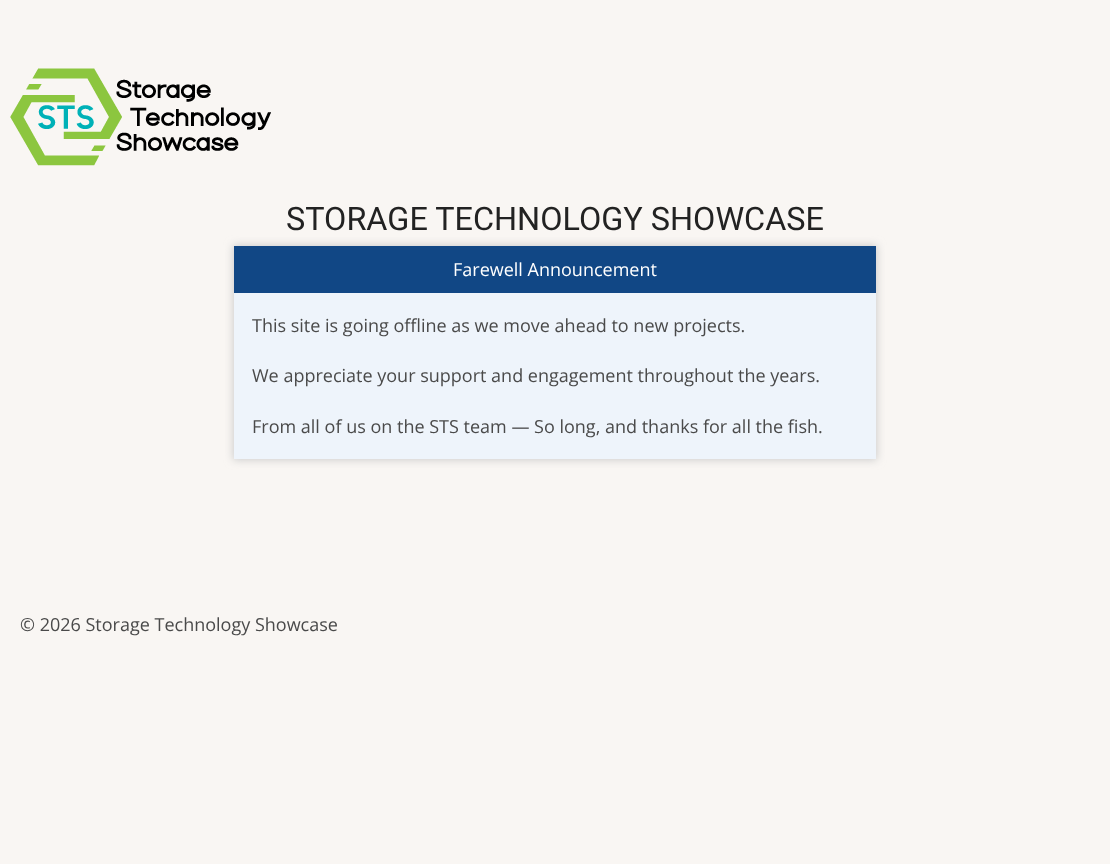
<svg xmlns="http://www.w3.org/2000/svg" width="1110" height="864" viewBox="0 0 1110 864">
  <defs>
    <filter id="blur1" x="-50%" y="-200%" width="200%" height="500%"><feGaussianBlur stdDeviation="4"/></filter>
  </defs>
  <rect width="100%" height="100%" fill="#f9f6f3"/>
  <image x="10" y="68" width="261" height="98" href="img1.png"/>
  <text x="286" y="230" font-family="Roboto" font-size="32.4" fill="#222222">STORAGE TECHNOLOGY SHOWCASE</text>
  <rect x="233" y="245" width="644" height="215" fill="#cccccc" filter="url(#blur1)"/>
  <rect x="234" y="246" width="642" height="47" fill="#114785"/>
  <text x="453" y="276" font-family="Open Sans" font-size="18" fill="#ffffff">Farewell Announcement</text>
  <rect x="234" y="293" width="642" height="166" fill="#eef4fb"/>
  <text x="252" y="332" font-family="Open Sans" font-size="18" fill="#4a4a4a">This site is going offline as we move ahead to new projects.</text>
  <text x="252" y="382" font-family="Open Sans" font-size="18" fill="#4a4a4a">We appreciate your support and engagement throughout the years.</text>
  <text x="252" y="433" font-family="Open Sans" font-size="18" fill="#4a4a4a">From all of us on the STS team — So long, and thanks for all the fish.</text>
  <text x="20" y="631" font-family="Open Sans" font-size="18" fill="#4a4a4a">© 2026 Storage Technology Showcase</text>
</svg>
